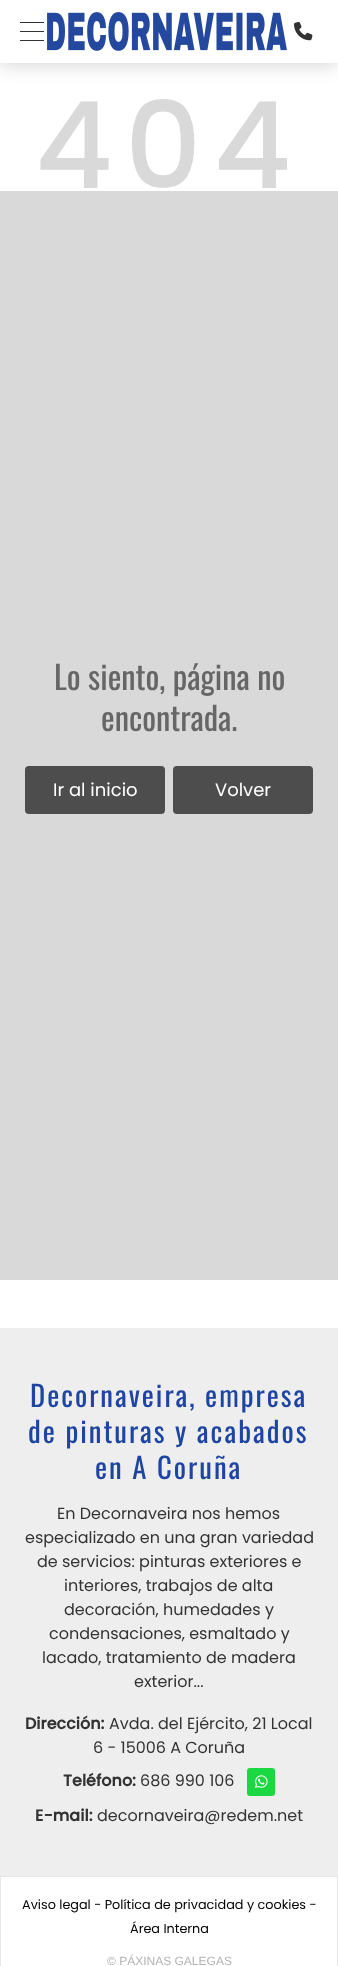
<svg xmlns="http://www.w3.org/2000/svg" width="338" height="1966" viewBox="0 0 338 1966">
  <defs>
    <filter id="blur1" x="-50%" y="-200%" width="200%" height="500%"><feGaussianBlur stdDeviation="10"/></filter>
  </defs>
  <rect width="100%" height="100%" fill="#ffffff"/>
  <rect x="0" y="0" width="338" height="63" fill="#000000" fill-opacity="0.2" filter="url(#blur1)"/>
  <rect x="0" y="0" width="338" height="63" fill="#ffffff"/>
  <rect x="20" y="22" width="24" height="1" fill="#333333"/>
  <rect x="20" y="31" width="24" height="1" fill="#333333"/>
  <rect x="20" y="40" width="24" height="1" fill="#333333"/>
  <image x="47" y="12" width="240" height="39" href="img1.png"/>
  <image x="294" y="21" width="19" height="20" href="img2.png"/>
  <text x="35" y="188" font-family="Poppins" font-size="120" font-weight="500" letter-spacing="12" fill="#d9d9d9">404</text>
  <rect x="0" y="191" width="338" height="1089" fill="#d9d9d9"/>
  <text x="54" y="690" font-family="Oswald" font-size="32.5" fill="#666666">Lo siento, página no</text>
  <text x="101" y="731" font-family="Oswald" font-size="32.5" fill="#666666">encontrada.</text>
  <rect x="25" y="766" width="140" height="48" rx="4" fill="#4d4d4d"/>
  <text x="53" y="796" font-family="Poppins" font-size="18" fill="#ffffff">Ir al inicio</text>
  <rect x="173" y="766" width="140" height="48" rx="4" fill="#4d4d4d"/>
  <text x="215" y="796" font-family="Poppins" font-size="18" fill="#ffffff">Volver</text>
  <rect x="0" y="1328" width="338" height="548" fill="#eeeeee"/>
  <text x="30" y="1407" font-family="Oswald" font-size="28.75" letter-spacing="2" fill="#1e45a1">Decornaveira, empresa</text>
  <text x="28" y="1443" font-family="Oswald" font-size="28.75" letter-spacing="2" fill="#1e45a1">de pinturas y acabados</text>
  <text x="95" y="1479" font-family="Oswald" font-size="28.75" letter-spacing="2" fill="#1e45a1">en A Coruña</text>
  <text x="57" y="1519" font-family="Poppins" font-size="16" fill="#333333">En Decornaveira nos hemos</text>
  <text x="25" y="1543" font-family="Poppins" font-size="16" fill="#333333">especializado en una gran variedad</text>
  <text x="37" y="1567" font-family="Poppins" font-size="16" fill="#333333">de servicios: pinturas exteriores e</text>
  <text x="64" y="1591" font-family="Poppins" font-size="16" fill="#333333">interiores, trabajos de alta</text>
  <text x="64" y="1615" font-family="Poppins" font-size="16" fill="#333333">decoración, humedades y</text>
  <text x="49" y="1639" font-family="Poppins" font-size="16" fill="#333333">condensaciones, esmaltado y</text>
  <text x="42" y="1663" font-family="Poppins" font-size="16" fill="#333333">lacado, tratamiento de madera</text>
  <text x="134" y="1687" font-family="Poppins" font-size="16" fill="#333333">exterior...</text>
  <text x="25" y="1729" font-family="Poppins" font-size="16" font-weight="bold" fill="#333333">Dirección:</text>
  <text x="109" y="1729" font-family="Poppins" font-size="16" fill="#333333">Avda. del Ejército, 21 Local</text>
  <text x="93" y="1753" font-family="Poppins" font-size="16" fill="#333333">6 - 15006 A Coruña</text>
  <text x="63" y="1786" font-family="Poppins" font-size="16" font-weight="bold" fill="#333333">Teléfono:</text>
  <text x="140" y="1786" font-family="Poppins" font-size="16" fill="#333333">686 990 106</text>
  <rect x="247" y="1768" width="28" height="28" rx="3" fill="#1bd741"/>
  <image x="255" y="1775" width="13" height="13" href="img3.png"/>
  <text x="35" y="1821" font-family="Poppins" font-size="16" font-weight="bold" fill="#333333">E-mail:</text>
  <text x="97" y="1821" font-family="Poppins" font-size="16" fill="#333333">decornaveira@redem.net</text>
  <rect x="0.5" y="1876.5" width="337" height="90" fill="none" stroke="#e6e6e6"/>
  <text x="22" y="1909" font-family="Poppins" font-size="12.8" fill="#000000">Aviso legal - Política de privacidad y cookies -</text>
  <text x="130" y="1933" font-family="Poppins" font-size="12.8" fill="#000000">Área Interna</text>
  <text x="107" y="1965" font-family="Liberation Sans" font-size="12" fill="#b3b3b3">© PÁXINAS GALEGAS</text>
</svg>
